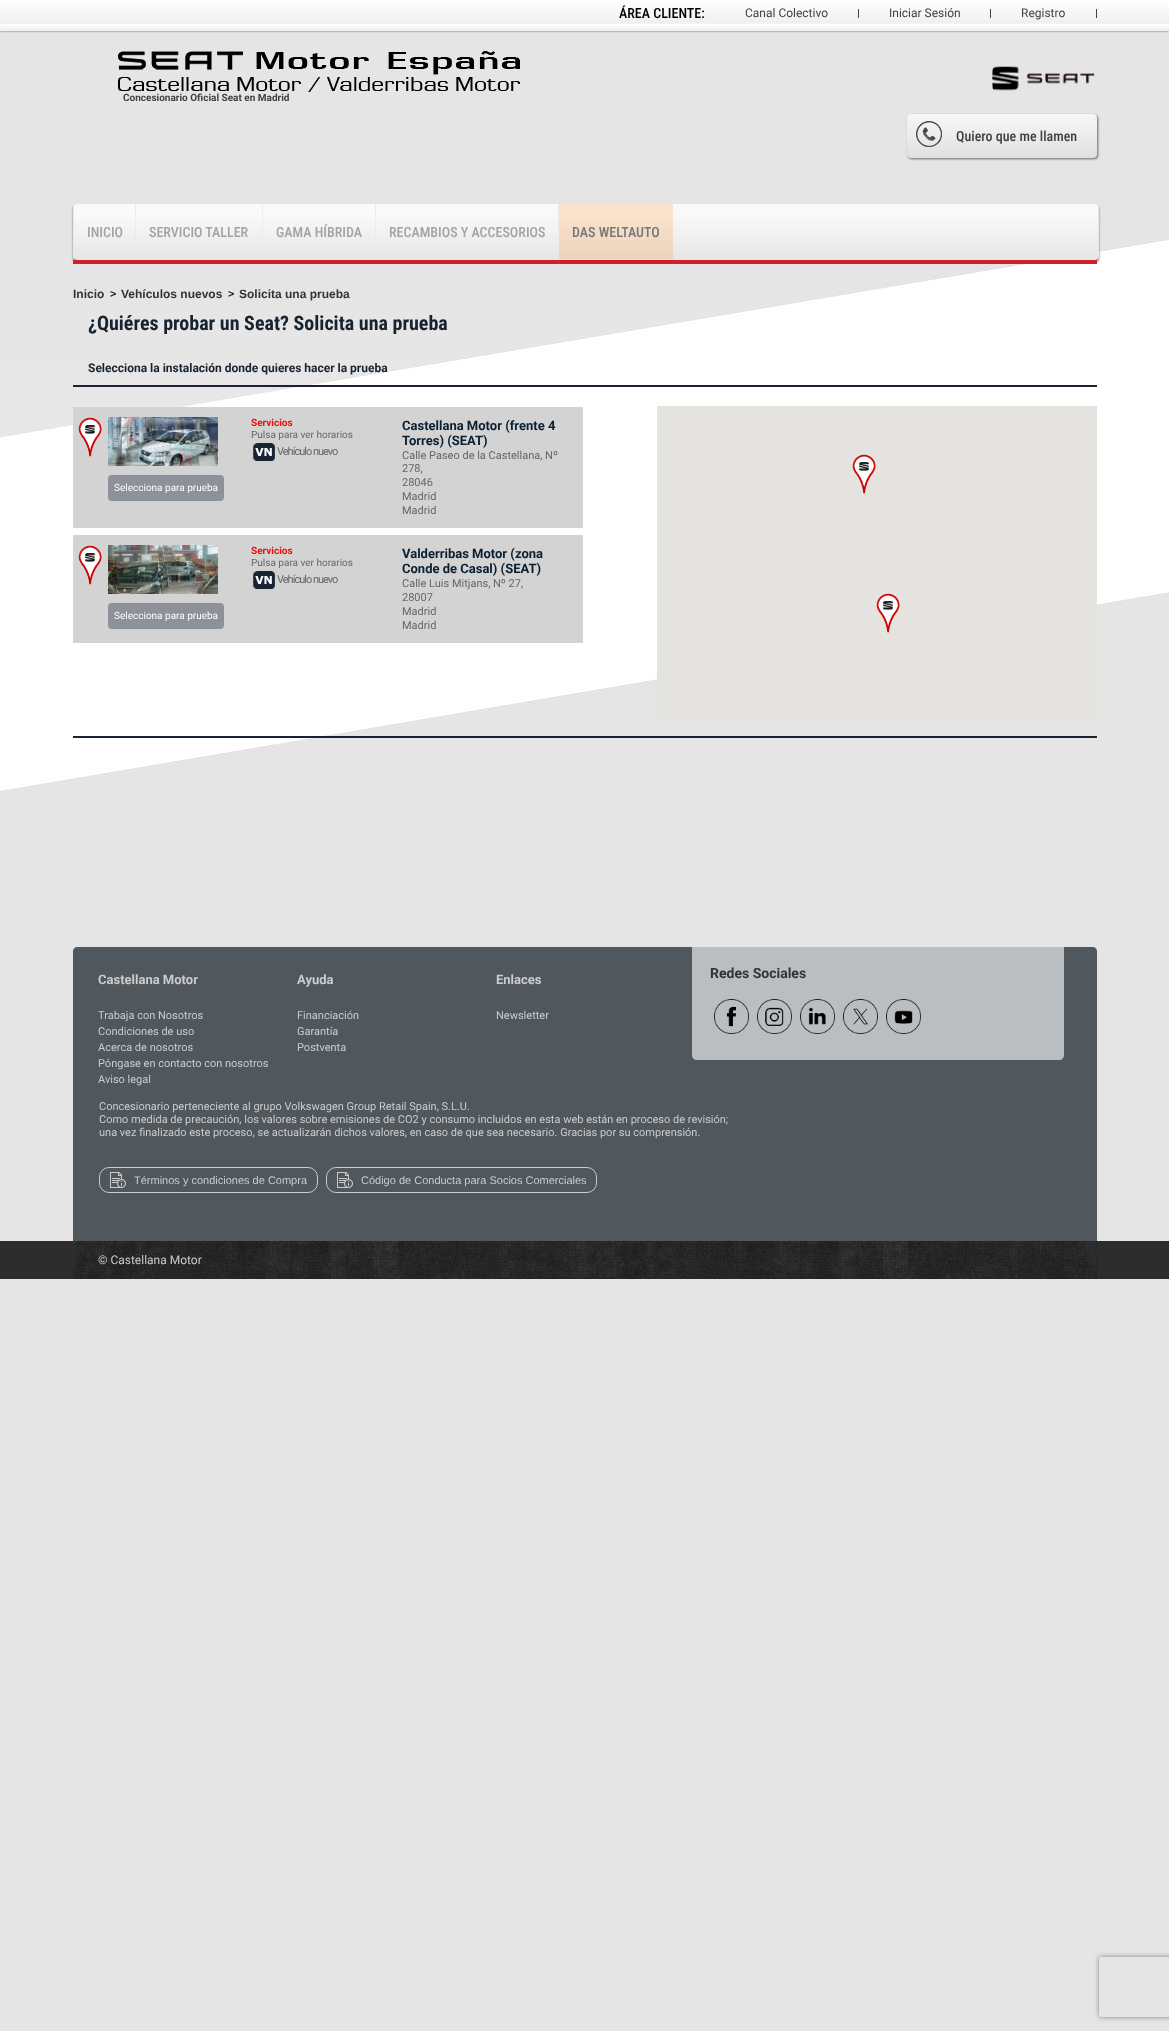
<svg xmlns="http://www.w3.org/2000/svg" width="1169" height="2031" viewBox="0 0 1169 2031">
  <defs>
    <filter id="blur1" x="-50%" y="-200%" width="200%" height="500%"><feGaussianBlur stdDeviation="1"/></filter>
    <linearGradient id="g1" gradientUnits="userSpaceOnUse" x1="585" y1="0" x2="585" y2="31"><stop offset="0.07" stop-color="#fefefe"/><stop offset="0.75" stop-color="#efefef"/><stop offset="0.78" stop-color="#ffffff"/><stop offset="0.98" stop-color="#efefef"/></linearGradient>
    <linearGradient id="g2" gradientUnits="userSpaceOnUse" x1="1002" y1="114" x2="1002" y2="158"><stop offset="0" stop-color="#f7f7f7"/><stop offset="1" stop-color="#e0e0e0"/></linearGradient>
    <clipPath id="clip1"><rect x="73" y="203" width="1026" height="57" rx="4"/></clipPath>
    <linearGradient id="g3" gradientUnits="userSpaceOnUse" x1="586" y1="204" x2="586" y2="259"><stop offset="0" stop-color="#f9f9f9"/><stop offset="0.2" stop-color="#f9f9f9"/><stop offset="1" stop-color="#e6e6e6"/></linearGradient>
    <clipPath id="clip2"><path d="M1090 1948H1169V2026H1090ZM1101 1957H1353C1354 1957 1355 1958 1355 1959V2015C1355 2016 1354 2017 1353 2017H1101C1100 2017 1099 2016 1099 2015V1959C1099 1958 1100 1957 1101 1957Z" clip-rule="evenodd"/></clipPath>
    <filter id="blur2" x="-50%" y="-200%" width="200%" height="500%"><feGaussianBlur stdDeviation="2.5"/></filter>
  </defs>
  <rect width="100%" height="100%" fill="#e5e5e5"/>
  <image x="0" y="240" width="1169" height="551" href="img1.png"/>
  <rect x="0" y="0" width="1169" height="31" fill="#666666" filter="url(#blur1)"/>
  <rect x="0" y="0" width="1169" height="31" fill="url(#g1)"/>
  <text x="619" y="18" font-family="Roboto Condensed" font-size="14" font-weight="500" fill="#000000">ÁREA CLIENTE:</text>
  <rect x="858" y="9" width="1" height="9" fill="#444444"/>
  <text x="745" y="17" font-family="Roboto" font-size="12" fill="#3f3f3f">Canal Colectivo</text>
  <rect x="990" y="9" width="1" height="9" fill="#444444"/>
  <text x="889" y="17" font-family="Roboto" font-size="12" fill="#3f3f3f">Iniciar Sesión</text>
  <rect x="1096" y="9" width="1" height="9" fill="#444444"/>
  <text x="1021" y="17" font-family="Roboto" font-size="12" fill="#3f3f3f">Registro</text>
  <image x="118" y="51" width="402" height="41" href="img2.png"/>
  <image x="992" y="66" width="103" height="25" href="img3.png"/>
  <text x="123" y="101" font-family="Roboto" font-size="10" font-weight="bold" fill="#3f3f3f">Concesionario Oficial Seat en Madrid</text>
  <rect x="908" y="115" width="190" height="44" rx="4" fill="#666666" filter="url(#blur1)"/>
  <rect x="907" y="114" width="190" height="44" rx="4" fill="url(#g2)"/>
  <image x="916" y="121" width="26" height="26" href="img4.png"/>
  <text x="956" y="141" font-family="Roboto Condensed" font-size="14" font-weight="500" fill="#3f3f3f">Quiero que me llamen</text>
  <rect x="73" y="205" width="1026" height="57" rx="4" fill="#777777" filter="url(#blur1)"/>
  <g clip-path="url(#clip1)">
    <rect x="73" y="204" width="1026" height="55" fill="url(#g3)"/>
  </g>
  <rect x="73.5" y="203.5" width="1025" height="56" rx="3.5" fill="none" stroke="#e6e6e6"/>
  <text x="87" y="237" font-family="Roboto Condensed" font-size="14" font-weight="500" fill="#a3a3a3">INICIO</text>
  <rect x="135" y="204" width="1" height="55" fill="#ececec"/>
  <text x="149" y="237" font-family="Roboto Condensed" font-size="14" font-weight="500" fill="#a3a3a3">SERVICIO TALLER</text>
  <rect x="262" y="204" width="1" height="55" fill="#ececec"/>
  <text x="276" y="237" font-family="Roboto Condensed" font-size="14" font-weight="500" fill="#a3a3a3">GAMA HÍBRIDA</text>
  <rect x="375" y="204" width="1" height="55" fill="#ececec"/>
  <text x="389" y="237" font-family="Roboto Condensed" font-size="14" font-weight="500" fill="#a3a3a3">RECAMBIOS Y ACCESORIOS</text>
  <rect x="558" y="204" width="1" height="55" fill="#ececec"/>
  <rect x="559" y="204" width="114" height="55" fill="#ff871f" fill-opacity="0.2"/>
  <text x="572" y="237" font-family="Roboto Condensed" font-size="14" font-weight="500" fill="#777777">DAS WELTAUTO</text>
  <rect x="73" y="260" width="1024" height="4" fill="#d12128"/>
  <text x="73" y="298" font-family="Liberation Sans" font-size="12" font-weight="bold" fill="#333333">Inicio</text>
  <image x="110" y="291" width="6" height="6" href="img5.png"/>
  <text x="121" y="298" font-family="Liberation Sans" font-size="12" font-weight="bold" fill="#333333">Vehículos nuevos</text>
  <image x="228" y="291" width="6" height="6" href="img5.png"/>
  <text x="239" y="298" font-family="Liberation Sans" font-size="12" font-weight="bold" fill="#333333">Solicita una prueba</text>
  <text x="88" y="330" font-family="Roboto Condensed" font-size="20" font-weight="bold" fill="#182330">¿Quiéres probar un Seat? Solicita una prueba</text>
  <text x="88" y="372" font-family="Roboto" font-size="12" font-weight="bold" fill="#182330">Selecciona la instalación donde quieres hacer la prueba</text>
  <rect x="73" y="385" width="1024" height="2" fill="#182331"/>
  <rect x="73" y="736" width="1024" height="2" fill="#182331"/>
  <rect x="73" y="407" width="510" height="121" fill="#d3d3d4"/>
  <image x="78" y="417" width="24" height="40" href="img6.png"/>
  <image x="108" y="417" width="110" height="49" href="img7.png"/>
  <image x="108" y="417" width="110" height="49" href="img8.png"/>
  <rect x="108" y="475" width="116" height="26" rx="4" fill="#8d919a"/>
  <text x="114" y="491" font-family="Roboto" font-size="10" fill="#ffffff">Selecciona para prueba</text>
  <text x="251" y="426" font-family="Roboto" font-size="10" font-weight="bold" fill="#e71100">Servicios</text>
  <text x="251" y="438" font-family="Roboto" font-size="10" fill="#666666">Pulsa para ver horarios</text>
  <image x="253" y="443" width="22" height="18" href="img9.png"/>
  <text x="277" y="455" font-family="Roboto" font-size="11" letter-spacing="-1" fill="#666666">Vehículo nuevo</text>
  <text x="402" y="430" font-family="Roboto" font-size="13" font-weight="bold" fill="#0a1f30">Castellana Motor (frente 4</text>
  <text x="402" y="445" font-family="Roboto" font-size="13" font-weight="bold" fill="#0a1f30">Torres) (SEAT)</text>
  <text x="402" y="459" font-family="Roboto" font-size="11" fill="#666666">Calle Paseo de la Castellana, Nº</text>
  <text x="402" y="472" font-family="Roboto" font-size="11" fill="#666666">278,</text>
  <text x="402" y="486" font-family="Roboto" font-size="11" fill="#666666">28046</text>
  <text x="402" y="500" font-family="Roboto" font-size="11" fill="#666666">Madrid</text>
  <text x="402" y="514" font-family="Roboto" font-size="11" fill="#666666">Madrid</text>
  <rect x="73" y="535" width="510" height="108" fill="#d3d3d4"/>
  <image x="78" y="545" width="24" height="40" href="img6.png"/>
  <image x="108" y="545" width="110" height="49" href="img10.png"/>
  <image x="108" y="545" width="110" height="49" href="img11.png"/>
  <rect x="108" y="603" width="116" height="26" rx="4" fill="#8d919a"/>
  <text x="114" y="619" font-family="Roboto" font-size="10" fill="#ffffff">Selecciona para prueba</text>
  <text x="251" y="554" font-family="Roboto" font-size="10" font-weight="bold" fill="#e71100">Servicios</text>
  <text x="251" y="566" font-family="Roboto" font-size="10" fill="#666666">Pulsa para ver horarios</text>
  <image x="253" y="571" width="22" height="18" href="img9.png"/>
  <text x="277" y="583" font-family="Roboto" font-size="11" letter-spacing="-1" fill="#666666">Vehículo nuevo</text>
  <text x="402" y="558" font-family="Roboto" font-size="13" font-weight="bold" fill="#0a1f30">Valderribas Motor (zona</text>
  <text x="402" y="573" font-family="Roboto" font-size="13" font-weight="bold" fill="#0a1f30">Conde de Casal) (SEAT)</text>
  <text x="402" y="587" font-family="Roboto" font-size="11" fill="#666666">Calle Luis Mitjans, Nº 27,</text>
  <text x="402" y="601" font-family="Roboto" font-size="11" fill="#666666">28007</text>
  <text x="402" y="615" font-family="Roboto" font-size="11" fill="#666666">Madrid</text>
  <text x="402" y="629" font-family="Roboto" font-size="11" fill="#666666">Madrid</text>
  <rect x="657" y="406" width="440" height="315" fill="#e5e3df"/>
  <image x="852" y="454" width="24" height="40" href="img12.png"/>
  <image x="876" y="593" width="24" height="40" href="img12.png"/>
  <path d="M77 947H1093C1095 947 1097 949 1097 951V1241H73V951C73 949 75 947 77 947Z" fill="#50575d"/>
  <text x="98" y="984" font-family="Roboto" font-size="13" font-weight="bold" fill="#cccccc">Castellana Motor</text>
  <text x="98" y="1019" font-family="Roboto" font-size="11" fill="#cccccc">Trabaja con Nosotros</text>
  <text x="98" y="1035" font-family="Roboto" font-size="11" fill="#cccccc">Condiciones de uso</text>
  <text x="98" y="1051" font-family="Roboto" font-size="11" fill="#cccccc">Acerca de nosotros</text>
  <text x="98" y="1067" font-family="Roboto" font-size="11" fill="#cccccc">Póngase en contacto con nosotros</text>
  <text x="98" y="1083" font-family="Roboto" font-size="11" fill="#cccccc">Aviso legal</text>
  <text x="297" y="984" font-family="Roboto" font-size="13" font-weight="bold" fill="#cccccc">Ayuda</text>
  <text x="297" y="1019" font-family="Roboto" font-size="11" fill="#cccccc">Financiación</text>
  <text x="297" y="1035" font-family="Roboto" font-size="11" fill="#cccccc">Garantía</text>
  <text x="297" y="1051" font-family="Roboto" font-size="11" fill="#cccccc">Postventa</text>
  <text x="496" y="984" font-family="Roboto" font-size="13" font-weight="bold" fill="#cccccc">Enlaces</text>
  <text x="496" y="1019" font-family="Roboto" font-size="11" fill="#cccccc">Newsletter</text>
  <path d="M692 947H1064V1055C1064 1058 1062 1060 1059 1060H697C694 1060 692 1058 692 1055Z" fill="#bbbec1"/>
  <text x="710" y="978" font-family="Roboto" font-size="14" font-weight="bold" fill="#333333">Redes Sociales</text>
  <image x="714" y="999" width="35" height="35" href="img13.png"/>
  <image x="757" y="999" width="35" height="35" href="img14.png"/>
  <image x="800" y="999" width="35" height="35" href="img15.png"/>
  <image x="843" y="999" width="35" height="35" href="img16.png"/>
  <image x="886" y="999" width="35" height="35" href="img17.png"/>
  <text x="99" y="1110" font-family="Roboto" font-size="11" fill="#cccccc">Concesionario perteneciente al grupo Volkswagen Group Retail Spain, S.L.U.</text>
  <text x="99" y="1123" font-family="Roboto" font-size="11" fill="#cccccc">Como medida de precaución, los valores sobre emisiones de CO2 y consumo incluidos en esta web están en proceso de revisión;</text>
  <text x="99" y="1136" font-family="Roboto" font-size="11" fill="#cccccc">una vez finalizado este proceso, se actualizarán dichos valores, en caso de que sea necesario. Gracias por su comprensión.</text>
  <rect x="99.5" y="1167.5" width="218" height="25" rx="9.5" fill="none" stroke="#cccccc"/>
  <image x="110" y="1172" width="16" height="16" href="img18.png"/>
  <text x="134" y="1184" font-family="Liberation Sans" font-size="11" fill="#cccccc">Términos y condiciones de Compra</text>
  <rect x="326.5" y="1167.5" width="270" height="25" rx="9.5" fill="none" stroke="#cccccc"/>
  <image x="337" y="1172" width="16" height="16" href="img18.png"/>
  <text x="361" y="1184" font-family="Liberation Sans" font-size="11" fill="#cccccc">Código de Conducta para Socios Comerciales</text>
  <rect x="0" y="1241" width="1169" height="38" fill="#2c2c2c"/>
  <image x="73" y="1241" width="1024" height="38" href="img19.png"/>
  <text x="98" y="1264" font-family="Roboto" font-size="12" fill="#cccccc">© Castellana Motor</text>
  <g clip-path="url(#clip2)">
    <rect x="1099" y="1957" width="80" height="60" rx="2" fill="#808080" filter="url(#blur2)"/>
  </g>
</svg>
